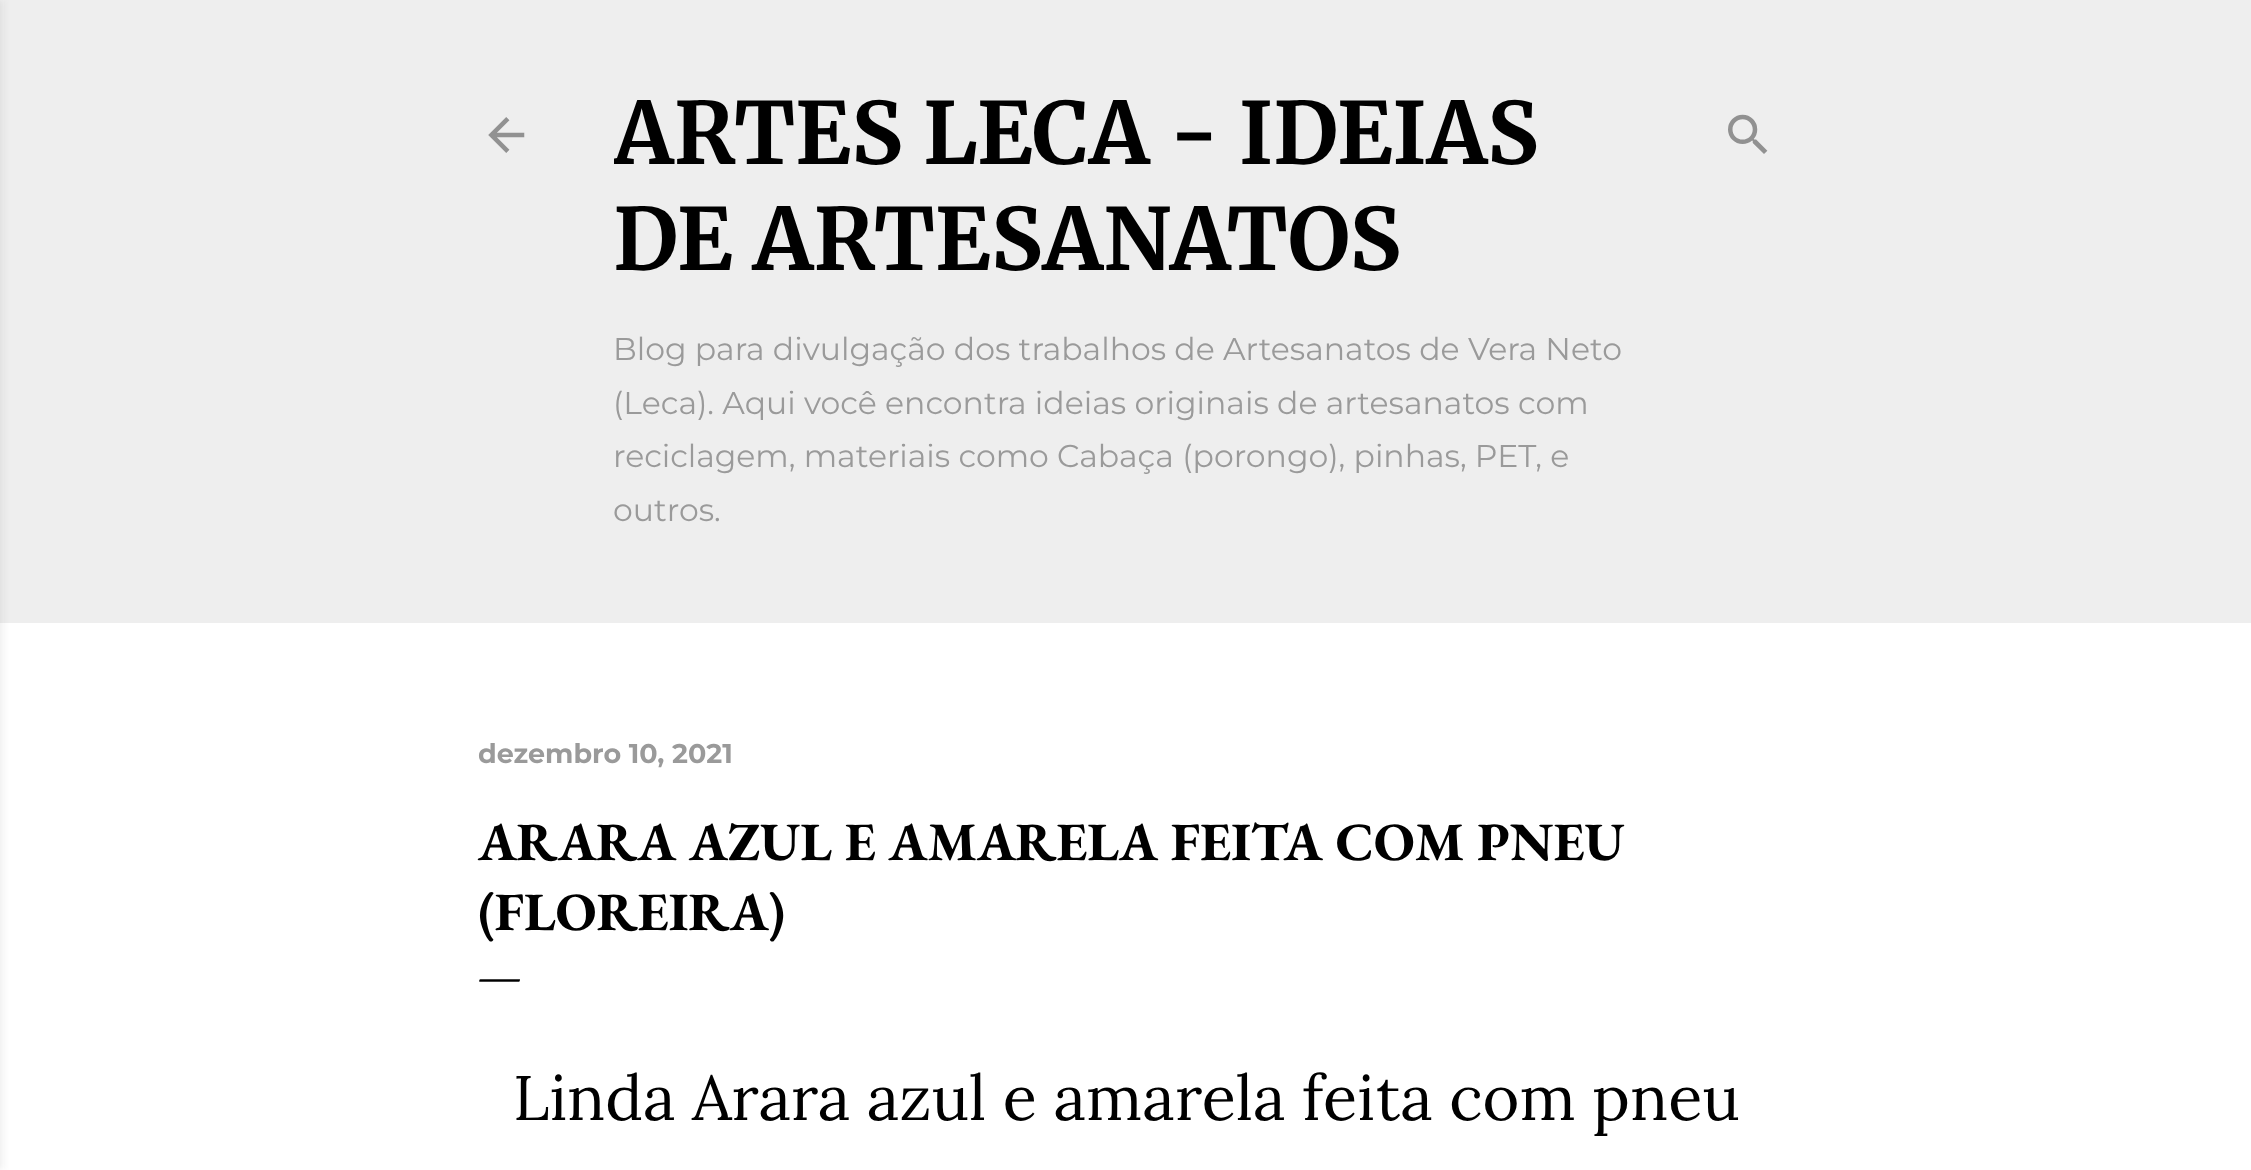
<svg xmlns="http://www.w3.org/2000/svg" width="2251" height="1170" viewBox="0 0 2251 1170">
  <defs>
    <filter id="blur1" x="-50%" y="-200%" width="200%" height="500%"><feGaussianBlur stdDeviation="3.5"/></filter>
    <clipPath id="clip1"><rect x="614" y="81" width="1026" height="488"/></clipPath>
  </defs>
  <rect width="100%" height="100%" fill="#ffffff"/>
  <rect x="0" y="0" width="2251" height="623" fill="#eeeeee"/>
  <rect x="-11" y="0" width="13" height="1170" fill="#424242" fill-opacity="0.1" filter="url(#blur1)"/>
  <image x="488" y="117" width="37" height="36" href="img1.png"/>
  <g clip-path="url(#clip1)">
    <text x="613" y="164" font-family="Merriweather" font-size="85.5" font-weight="300" fill="#000000">ARTES LECA - IDEIAS</text>
  </g>
  <text x="613" y="270" font-family="Merriweather" font-size="85.5" font-weight="300" fill="#000000">DE ARTESANATOS</text>
  <text x="613" y="360" font-family="Montserrat" font-size="31.5" fill="#9a9a9a">Blog para divulgação dos trabalhos de Artesanatos de Vera Neto</text>
  <text x="613" y="414" font-family="Montserrat" font-size="31.5" fill="#9a9a9a">(Leca). Aqui você encontra ideias originais de artesanatos com</text>
  <text x="613" y="467" font-family="Montserrat" font-size="31.5" fill="#9a9a9a">reciclagem, materiais como Cabaça (porongo), pinhas, PET, e</text>
  <text x="613" y="521" font-family="Montserrat" font-size="31.5" fill="#9a9a9a">outros.</text>
  <image x="1728" y="114" width="40" height="40" href="img2.png"/>
  <text x="478" y="763" font-family="Montserrat" font-size="27" font-weight="bold" fill="#9a9a9a">dezembro 10, 2021</text>
  <text x="478" y="860" font-family="EB Garamond" font-size="54" font-weight="bold" fill="#000000">ARARA AZUL E AMARELA FEITA COM PNEU</text>
  <text x="478" y="930" font-family="EB Garamond" font-size="54" font-weight="bold" fill="#000000">(FLOREIRA)</text>
  <text x="478" y="990" font-family="EB Garamond" font-size="45" font-weight="bold" fill="#000000">—</text>
  <text x="513" y="1120" font-family="Lora" font-size="63" fill="#000000">Linda Arara azul e amarela feita com pneu</text>
</svg>
